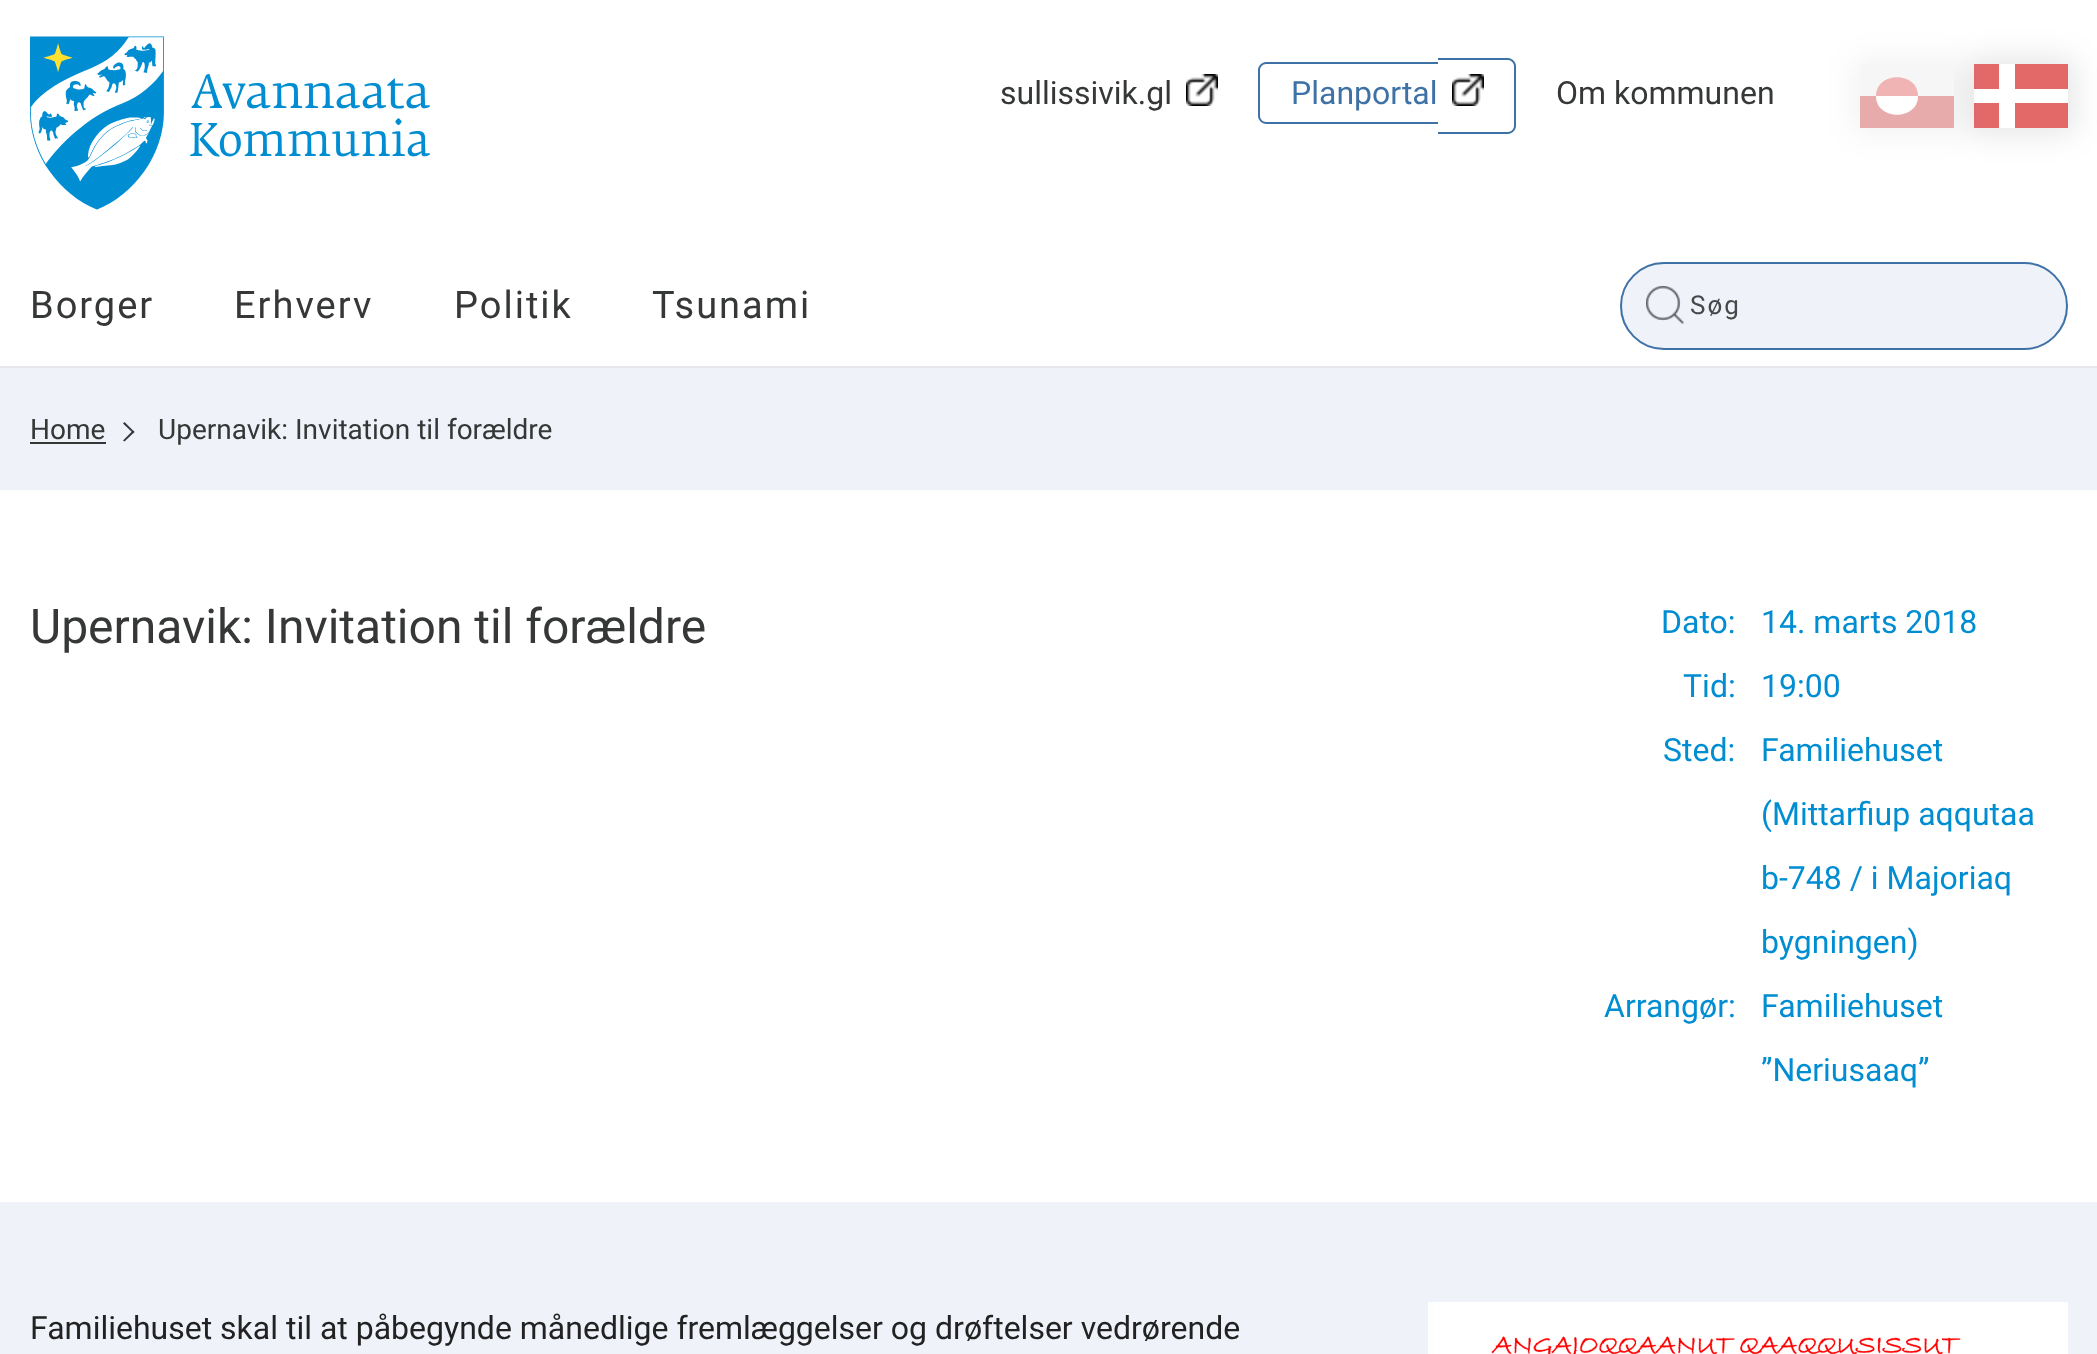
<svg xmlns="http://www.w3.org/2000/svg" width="2097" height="1354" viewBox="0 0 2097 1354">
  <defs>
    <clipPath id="clip1"><path d="M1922 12H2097V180H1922ZM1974 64H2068V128H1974Z" clip-rule="evenodd"/></clipPath>
    <filter id="blur1" x="-50%" y="-200%" width="200%" height="500%"><feGaussianBlur stdDeviation="15"/></filter>
    <clipPath id="clip2"><rect x="1860" y="64" width="94" height="64"/></clipPath>
  </defs>
  <rect width="100%" height="100%" fill="#ffffff"/>
  <image x="30" y="36" width="400" height="174" href="img1.png"/>
  <text x="1000" y="104" font-family="Roboto" font-size="32" fill="#353836">sullissivik.gl</text>
  <image x="1186" y="74" width="32" height="32" href="img2.png"/>
  <path d="M1266 62H1438V124H1266C1262 124 1258 120 1258 116V70C1258 66 1262 62 1266 62ZM1266 64H1438V122H1266C1263 122 1260 119 1260 116V70C1260 67 1263 64 1266 64Z" fill="#3e72a6" fill-rule="evenodd"/>
  <path d="M1438 58H1508C1512 58 1516 62 1516 66V126C1516 130 1512 134 1508 134H1438ZM1438 60H1508C1511 60 1514 63 1514 66V126C1514 129 1511 132 1508 132H1438Z" fill="#3e72a6" fill-rule="evenodd"/>
  <text x="1291" y="104" font-family="Roboto" font-size="32" fill="#3e72a6">Planportal</text>
  <image x="1452" y="74" width="32" height="32" href="img2.png"/>
  <text x="1556" y="104" font-family="Roboto" font-size="32" fill="#353836">Om kommunen</text>
  <g clip-path="url(#clip1)">
    <rect x="1968" y="58" width="106" height="76" fill="#000000" fill-opacity="0.1" filter="url(#blur1)"/>
  </g>
  <rect x="1974" y="64" width="25" height="25" fill="#e36969"/>
  <rect x="1974" y="103" width="25" height="25" fill="#e36969"/>
  <rect x="1854" y="58" width="106" height="76" fill="#000000" fill-opacity="0.05" filter="url(#blur1)"/>
  <rect x="1860" y="64" width="94" height="32" fill="#f6f6f6"/>
  <g clip-path="url(#clip2)">
    <path d="M1860 132V96H1954V132H1860" fill="#e8abab"/>
  </g>
  <path d="M1918 96C1918 71 1876 71 1876 96Z" fill="#f1b4b4"/>
  <path d="M1876 96C1876 121 1918 121 1918 96Z" fill="#ffffff"/>
  <rect x="2015" y="64" width="53" height="25" fill="#e36969"/>
  <rect x="2015" y="103" width="53" height="25" fill="#e36969"/>
  <rect x="0" y="366" width="2097" height="2" fill="#e5e7eb"/>
  <text x="30" y="318" font-family="Roboto" font-size="38" letter-spacing="2" fill="#353836">Borger</text>
  <text x="234" y="318" font-family="Roboto" font-size="38" letter-spacing="2" fill="#353836">Erhverv</text>
  <text x="454" y="318" font-family="Roboto" font-size="38" letter-spacing="2" fill="#353836">Politik</text>
  <text x="652" y="318" font-family="Roboto" font-size="38" letter-spacing="2" fill="#353836">Tsunami</text>
  <rect x="1620" y="262" width="448" height="88" rx="44" fill="#eff2f9"/>
  <image x="1646" y="286" width="38" height="38" href="img3.png"/>
  <rect x="1621" y="263" width="446" height="86" rx="43" fill="none" stroke="#3e72a6" stroke-width="2"/>
  <text x="1690" y="314" font-family="Roboto" font-size="26" letter-spacing="2" fill="#47484a">Søg</text>
  <rect x="0" y="368" width="2097" height="122" fill="#eff2f9"/>
  <text x="30" y="439" font-family="Roboto" font-size="28" fill="#353836">Home</text>
  <rect x="30" y="442" width="76" height="2" fill="#353836"/>
  <path d="M124.5 422L134.5 432L133 433L123 423.5Z" fill="#343536"/>
  <path d="M133 430.5L134.5 432L124.5 441.5L123 440.5Z" fill="#343536"/>
  <text x="158" y="439" font-family="Roboto" font-size="28" fill="#353836">Upernavik: Invitation til forældre</text>
  <text x="30" y="643" font-family="Roboto" font-size="48" fill="#353836">Upernavik: Invitation til forældre</text>
  <text x="1661" y="633" font-family="Roboto" font-size="32" fill="#008dd2">Dato:</text>
  <text x="1761" y="633" font-family="Roboto" font-size="32" fill="#008dd2">14. marts 2018</text>
  <text x="1683" y="697" font-family="Roboto" font-size="32" fill="#008dd2">Tid:</text>
  <text x="1761" y="697" font-family="Roboto" font-size="32" fill="#008dd2">19:00</text>
  <text x="1663" y="761" font-family="Roboto" font-size="32" fill="#008dd2">Sted:</text>
  <text x="1761" y="761" font-family="Roboto" font-size="32" fill="#008dd2">Familiehuset</text>
  <text x="1761" y="825" font-family="Roboto" font-size="32" fill="#008dd2">(Mittarfiup aqqutaa</text>
  <text x="1761" y="889" font-family="Roboto" font-size="32" fill="#008dd2">b-748 / i Majoriaq</text>
  <text x="1761" y="953" font-family="Roboto" font-size="32" fill="#008dd2">bygningen)</text>
  <text x="1604" y="1017" font-family="Roboto" font-size="32" fill="#008dd2">Arrangør:</text>
  <text x="1761" y="1017" font-family="Roboto" font-size="32" fill="#008dd2">Familiehuset</text>
  <text x="1761" y="1081" font-family="Roboto" font-size="32" fill="#008dd2">”Neriusaaq”</text>
  <rect x="0" y="1202" width="2097" height="152" fill="#eff2f9"/>
  <text x="30" y="1339" font-family="Roboto" font-size="32" fill="#222222">Familiehuset skal til at påbegynde månedlige fremlæggelser og drøftelser vedrørende</text>
  <image x="1428" y="1302" width="640" height="52" href="img4.png"/>
</svg>
